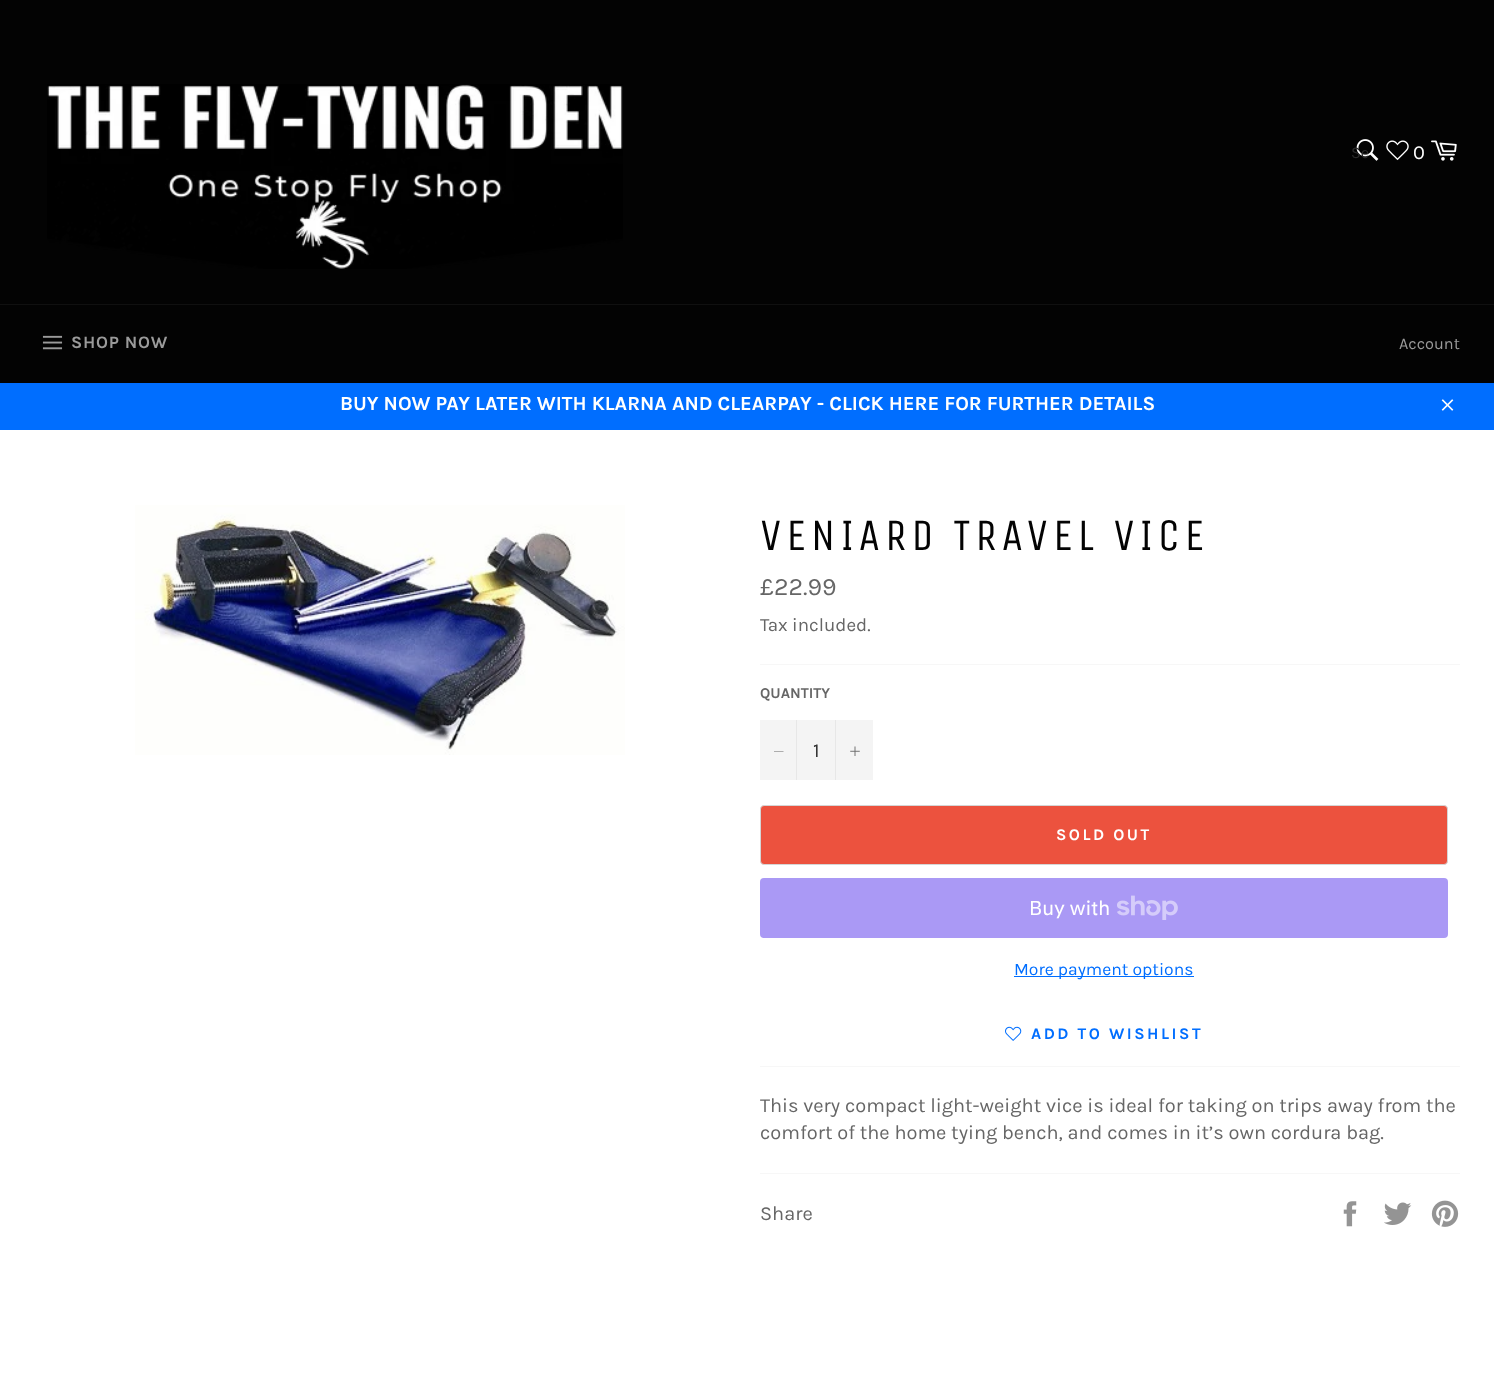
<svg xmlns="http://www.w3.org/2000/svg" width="1494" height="1377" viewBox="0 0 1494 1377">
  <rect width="100%" height="100%" fill="#030303"/>
  <image x="47" y="84" width="576" height="185" href="img1.png"/>
  <image x="1356" y="139" width="23" height="22" href="img2.png"/>
  <text x="1351" y="158" font-family="Karla" font-size="16.25" fill="#2b2b2b">Se</text>
  <image x="1386" y="140" width="23" height="21" href="img3.png"/>
  <text x="1413" y="159" font-family="Karla" font-size="20" fill="#ffffff">0</text>
  <image x="1431" y="140" width="26" height="21" href="img4.png"/>
  <rect x="0" y="304" width="1494" height="1" fill="#101010"/>
  <image x="42" y="335" width="21" height="15" href="img5.png"/>
  <text x="71" y="348" font-family="Karla" font-size="17.5" font-weight="bold" letter-spacing="0.75" fill="#9a9a9a">SHOP NOW</text>
  <text x="1399" y="349" font-family="Karla" font-size="16.25" fill="#9a9a9a">Account</text>
  <rect x="0" y="383" width="1494" height="47" fill="#006eff"/>
  <text x="340" y="410" font-family="Karla" font-size="20" font-weight="bold" fill="#ffffff">BUY NOW PAY LATER WITH KLARNA AND CLEARPAY - CLICK HERE FOR FURTHER DETAILS</text>
  <image x="1441" y="399" width="13" height="12" href="img6.png"/>
  <rect x="0" y="430" width="1494" height="947" fill="#ffffff"/>
  <image x="135" y="505" width="490" height="250" href="img7.png"/>
  <text x="760" y="550" font-family="Unica One" font-size="45" letter-spacing="4.5" fill="#030303">VENIARD TRAVEL VICE</text>
  <text x="760" y="595" font-family="Karla" font-size="25" fill="#666666">£22.99</text>
  <text x="760" y="631" font-family="Karla" font-size="18.75" fill="#666666">Tax included.</text>
  <rect x="760" y="664" width="700" height="1" fill="#f7f7f7"/>
  <text x="760" y="698" font-family="Karla" font-size="15" font-weight="bold" fill="#666666">QUANTITY</text>
  <rect x="760" y="720" width="113" height="60" fill="#f4f4f4"/>
  <rect x="796" y="720" width="1" height="60" fill="#e7e7e7"/>
  <path d="M783.5 751V751.5H774V751Z" fill="#666666" fill-rule="evenodd"/>
  <text x="813" y="757" font-family="Karla" font-size="20" fill="#333333">1</text>
  <rect x="835" y="720" width="1" height="60" fill="#e7e7e7"/>
  <image x="850" y="746" width="10" height="10" href="img8.png"/>
  <rect x="760.5" y="805.5" width="687" height="59" rx="3.5" fill="#ec523e" stroke="#d5d5d5"/>
  <text x="1056" y="840" font-family="Karla" font-size="16.25" font-weight="bold" letter-spacing="2.5" fill="#ffffff">SOLD OUT</text>
  <rect x="760" y="878" width="688" height="60" rx="4" fill="#aa99f5"/>
  <text x="1029" y="915" font-family="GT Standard" font-size="20" fill="#ffffff">Buy with</text>
  <image x="1117" y="895" width="61" height="25" href="img9.png"/>
  <rect x="1014" y="976" width="180" height="1" fill="#006eff"/>
  <text x="1014" y="975" font-family="Karla" font-size="17.5" fill="#006eff">More payment options</text>
  <image x="1005" y="1026" width="17" height="15" href="img10.png"/>
  <text x="1031" y="1039" font-family="Karla" font-size="16.25" font-weight="bold" letter-spacing="2.5" fill="#006eff">ADD TO WISHLIST</text>
  <rect x="760" y="1066" width="700" height="1" fill="#f7f7f7"/>
  <text x="760" y="1112" font-family="Karla" font-size="20" fill="#666666">This very compact light-weight vice is ideal for taking on trips away from the</text>
  <text x="760" y="1139" font-family="Karla" font-size="20" fill="#666666">comfort of the home tying bench, and comes in it’s own cordura bag.</text>
  <rect x="760" y="1173" width="700" height="1" fill="#f7f7f7"/>
  <text x="760" y="1220" font-family="Karla" font-size="20" fill="#666666">Share</text>
  <image x="1343" y="1201" width="14" height="26" href="img11.png"/>
  <image x="1384" y="1202" width="28" height="23" href="img12.png"/>
  <image x="1431" y="1200" width="28" height="27" href="img13.png"/>
</svg>
